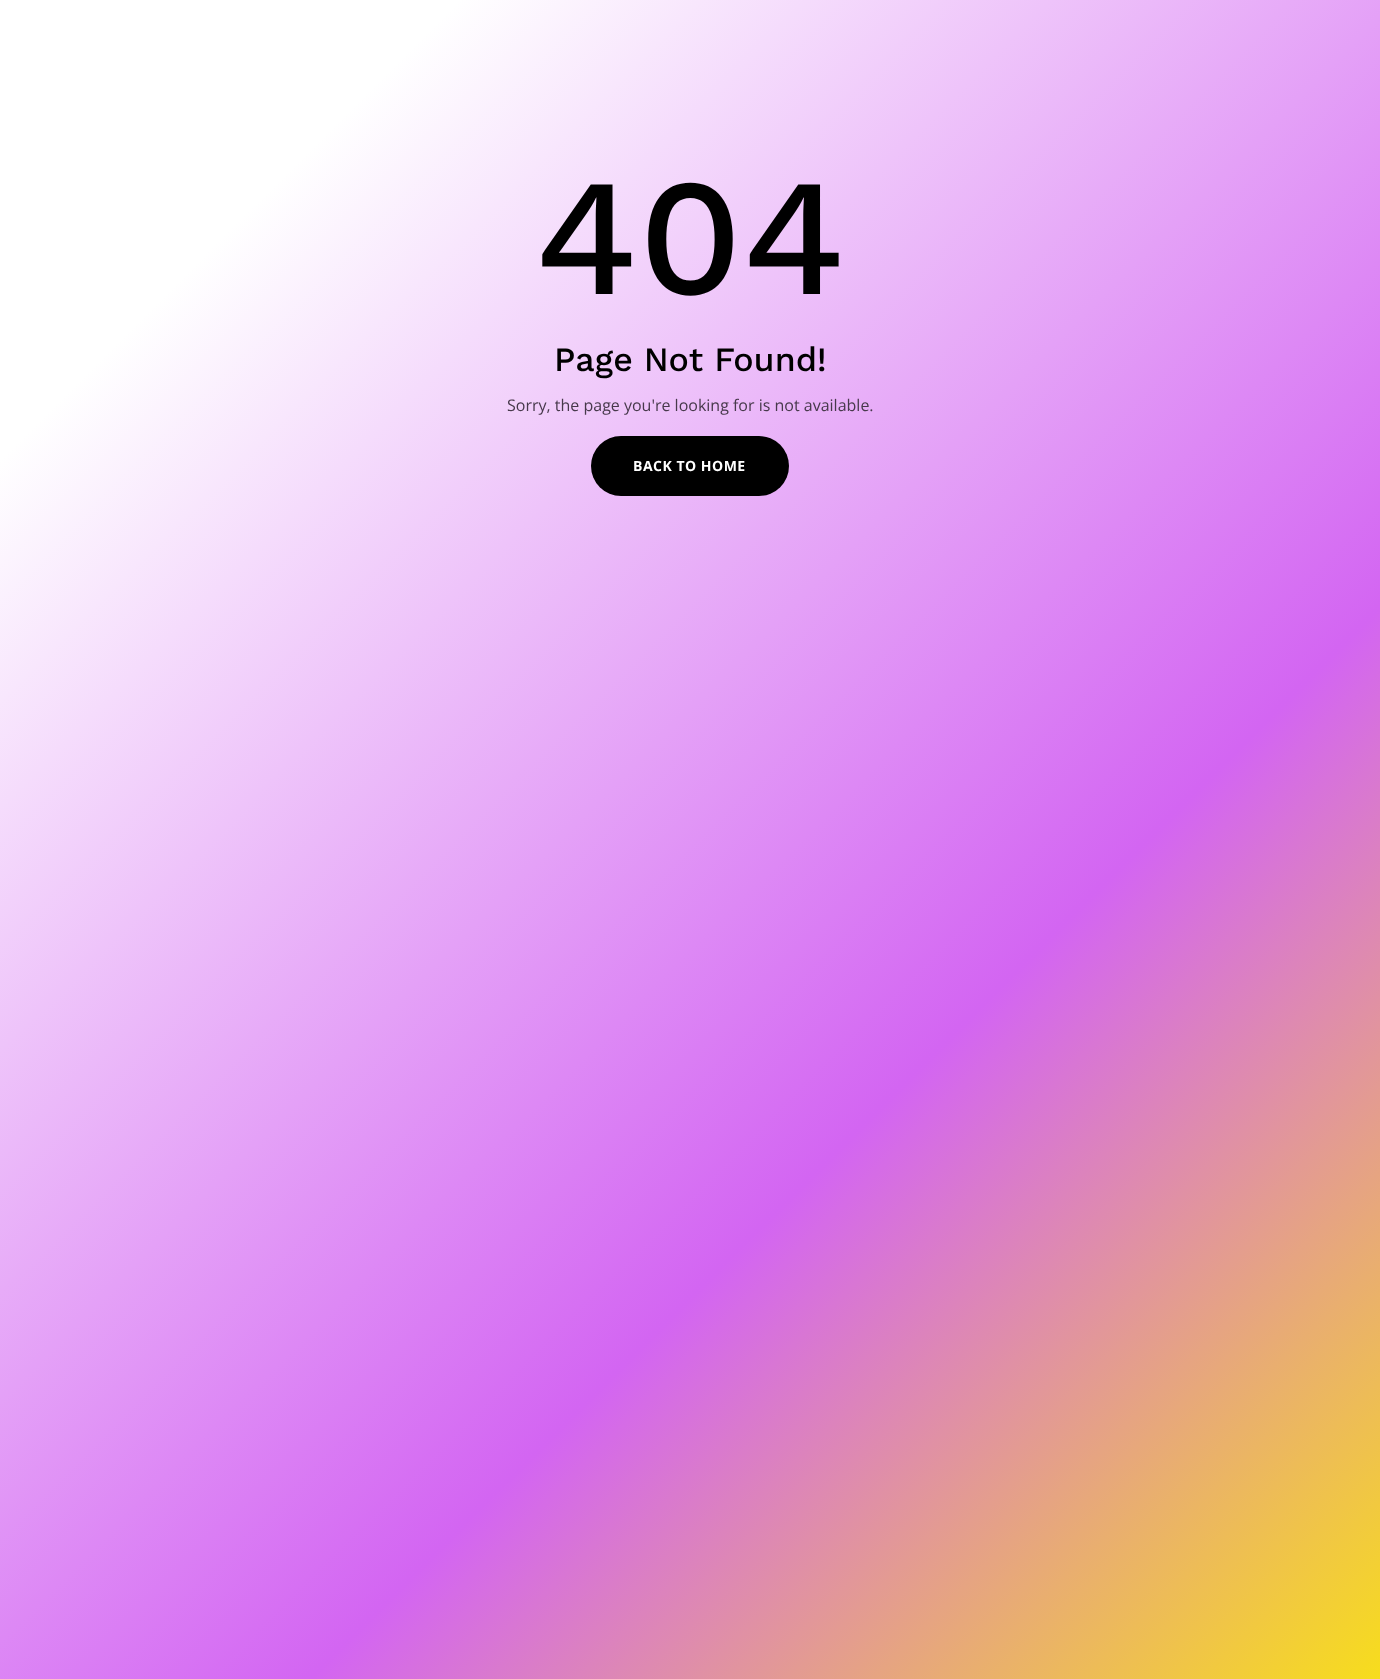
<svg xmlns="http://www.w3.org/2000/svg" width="1380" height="1679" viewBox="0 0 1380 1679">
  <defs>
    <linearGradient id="g1" gradientUnits="userSpaceOnUse" x1="-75" y1="75" x2="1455" y2="1604"><stop offset="0.15" stop-color="#ffffff"/><stop offset="0.65" stop-color="#d365f2"/><stop offset="1" stop-color="#f7dd1c"/></linearGradient>
  </defs>
  <rect width="100%" height="100%" fill="#ffffff"/>
  <rect x="0" y="0" width="1380" height="1679" fill="url(#g1)"/>
  <text x="535" y="294" font-family="Work Sans" font-size="166" font-weight="500" fill="#000000">404</text>
  <text x="554" y="371" font-family="Work Sans" font-size="34" font-weight="500" fill="#000000">Page Not Found!</text>
  <text x="507" y="411" font-family="Open Sans" font-size="16" fill="#47394b">Sorry, the page you're looking for is not available.</text>
  <rect x="591" y="436" width="198" height="60" rx="30" fill="#000000"/>
  <text x="633" y="471" font-family="Open Sans" font-size="14" font-weight="bold" letter-spacing="0.5" fill="#ffffff">BACK TO HOME</text>
</svg>
